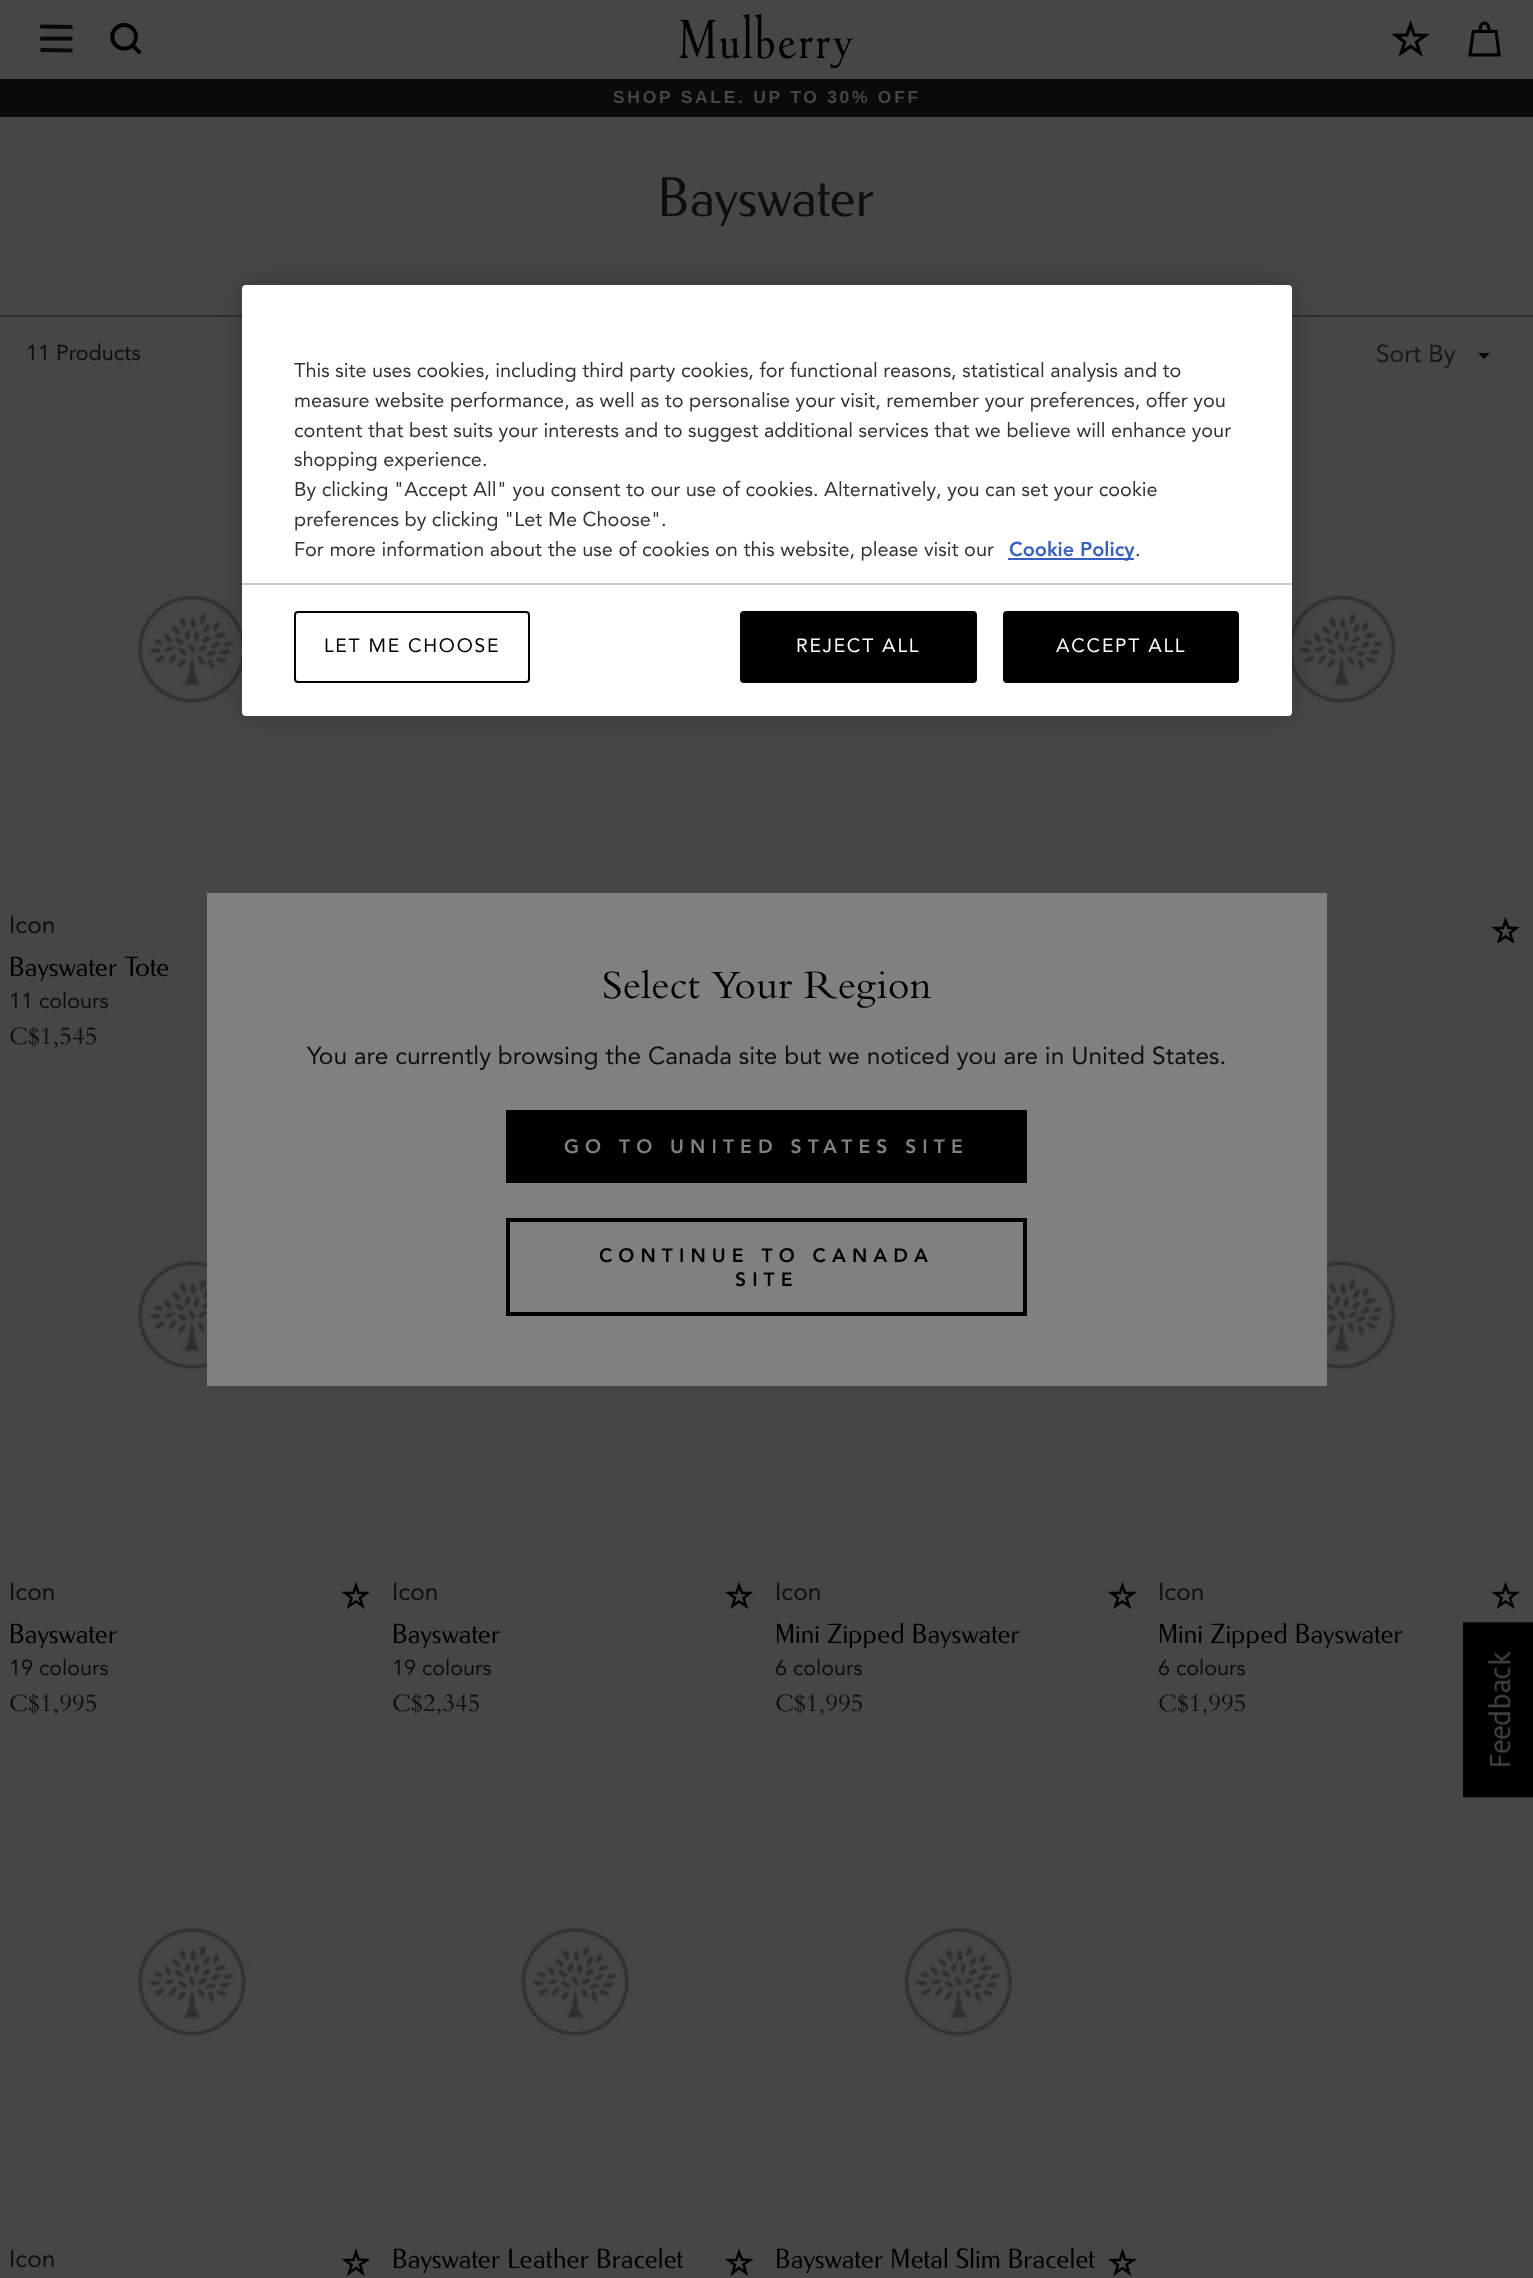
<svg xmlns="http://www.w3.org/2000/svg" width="1533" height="2278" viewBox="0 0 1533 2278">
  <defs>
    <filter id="blur1" x="-50%" y="-200%" width="200%" height="500%"><feGaussianBlur stdDeviation="4.5"/></filter>
    <clipPath id="clip1"><rect x="1491" y="915" width="28" height="28"/></clipPath>
    <clipPath id="clip2"><rect x="341" y="1582" width="28" height="28"/></clipPath>
    <clipPath id="clip3"><rect x="1108" y="1582" width="28" height="28"/></clipPath>
    <clipPath id="clip4"><rect x="341" y="2249" width="28" height="28"/></clipPath>
    <clipPath id="clip5"><rect x="1108" y="2249" width="28" height="28"/></clipPath>
    <filter id="blur2" x="-50%" y="-200%" width="200%" height="500%"><feGaussianBlur stdDeviation="16"/></filter>
  </defs>
  <rect width="100%" height="100%" fill="#464646"/>
  <rect x="0" y="79" width="1533" height="38" fill="#0a0a0a"/>
  <rect x="0" y="0" width="1533" height="79" fill="#000000" fill-opacity="0.2" filter="url(#blur1)"/>
  <rect x="0" y="0" width="1533" height="79" fill="#464646"/>
  <path d="M72.5 25V29L40 28.5L40.5 24.5ZM72.5 48.5V52.5L40.5 52V48ZM72.5 36.5V40.5H40L40.5 36.5Z" fill="#090909"/>
  <image x="110" y="23" width="32" height="32" href="img1.png"/>
  <image x="679" y="14" width="175" height="54" href="img2.png"/>
  <image x="1391" y="20" width="39" height="37" href="img3.png"/>
  <image x="1468" y="21" width="33" height="36" href="img4.png"/>
  <text x="613" y="103" font-family="Liberation Sans" font-size="17.5" font-weight="bold" letter-spacing="2.7" fill="#464646">SHOP SALE. UP TO 30% OFF</text>
  <text x="658" y="216" font-family="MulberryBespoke" font-size="56" fill="#0e0e0e">Bayswater</text>
  <rect x="0" y="315" width="1533" height="2" fill="#303030"/>
  <text x="26" y="360" font-family="Avenir" font-size="21.5" fill="#0e0e0e">11 Products</text>
  <text x="1376" y="362" font-family="Avenir" font-size="24.5" fill="#18191a">Sort By</text>
  <path d="M1478 353H1490L1484 359Z" fill="#040a08" fill-rule="evenodd"/>
  <image x="1292" y="588" width="107" height="120" href="img5.png"/>
  <g clip-path="url(#clip1)">
    <path d="M1502 928H1503L1505.5 920.5L1508.5 928H1516.5L1510 933L1512.5 941L1505.5 936.5L1499 941L1501.5 933L1495 928Z" fill="none" stroke="#000000" stroke-width="2.5"/>
  </g>
  <image x="136" y="588" width="106" height="120" href="img6.png"/>
  <text x="9" y="933" font-family="Avenir" font-size="24.5" fill="#0e0e0e">Icon</text>
  <text x="9" y="976" font-family="MulberryBespoke" font-size="28" fill="#000000">Bayswater Tote</text>
  <text x="9" y="1008" font-family="Avenir" font-size="21.5" fill="#0e0e0e">11 colours</text>
  <text x="9" y="1044" font-family="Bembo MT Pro" font-size="26" fill="#0e0e0e">C$1,545</text>
  <image x="136" y="1253" width="71" height="121" href="img7.png"/>
  <text x="9" y="1600" font-family="Avenir" font-size="24.5" fill="#0e0e0e">Icon</text>
  <text x="9" y="1643" font-family="MulberryBespoke" font-size="28" fill="#000000">Bayswater</text>
  <text x="9" y="1675" font-family="Avenir" font-size="21.5" fill="#0e0e0e">19 colours</text>
  <text x="9" y="1711" font-family="Bembo MT Pro" font-size="26" fill="#0e0e0e">C$1,995</text>
  <g clip-path="url(#clip2)">
    <path d="M352.5 1593H353.5L356 1585.5L358.5 1593H367L360 1598L362.5 1606L356 1601.5L349 1606L351.5 1598L345 1593Z" fill="none" stroke="#000000" stroke-width="2.5"/>
  </g>
  <text x="392" y="1600" font-family="Avenir" font-size="24.5" fill="#0e0e0e">Icon</text>
  <text x="392" y="1643" font-family="MulberryBespoke" font-size="28" fill="#000000">Bayswater</text>
  <text x="392" y="1675" font-family="Avenir" font-size="21.5" fill="#0e0e0e">19 colours</text>
  <text x="392" y="1711" font-family="Bembo MT Pro" font-size="26" fill="#0e0e0e">C$2,345</text>
  <path d="M735.5 1593H736.5L739 1585.5L742 1593H750L743.5 1598L746 1606L739 1601.5L732.5 1606L735 1598L728.5 1593Z" fill="none" stroke="#000000" stroke-width="2.5"/>
  <text x="775" y="1600" font-family="Avenir" font-size="24.5" fill="#0e0e0e">Icon</text>
  <text x="775" y="1643" font-family="MulberryBespoke" font-size="28" fill="#000000">Mini Zipped Bayswater</text>
  <text x="775" y="1675" font-family="Avenir" font-size="21.5" fill="#0e0e0e">6 colours</text>
  <text x="775" y="1711" font-family="Bembo MT Pro" font-size="26" fill="#0e0e0e">C$1,995</text>
  <g clip-path="url(#clip3)">
    <path d="M1119 1593H1120L1122.5 1585.5L1125 1593H1133.5L1126.5 1598L1129 1606L1122.5 1601.5L1115.5 1606L1118 1598L1111.5 1593Z" fill="none" stroke="#000000" stroke-width="2.5"/>
  </g>
  <image x="1327" y="1253" width="72" height="121" href="img8.png"/>
  <text x="1158" y="1600" font-family="Avenir" font-size="24.5" fill="#0e0e0e">Icon</text>
  <text x="1158" y="1643" font-family="MulberryBespoke" font-size="28" fill="#000000">Mini Zipped Bayswater</text>
  <text x="1158" y="1675" font-family="Avenir" font-size="21.5" fill="#0e0e0e">6 colours</text>
  <text x="1158" y="1711" font-family="Bembo MT Pro" font-size="26" fill="#0e0e0e">C$1,995</text>
  <path d="M1502 1593H1503L1505.5 1585.5L1508.5 1593H1516.5L1510 1598L1512.5 1606L1505.5 1601.5L1499 1606L1501.5 1598L1495 1593Z" fill="none" stroke="#000000" stroke-width="2.5"/>
  <image x="136" y="1920" width="115" height="121" href="img9.png"/>
  <text x="9" y="2267" font-family="Avenir" font-size="24.5" fill="#0e0e0e">Icon</text>
  <g clip-path="url(#clip4)">
    <path d="M352.5 2260H353.5L356 2252L358.5 2259.5L367 2260L360 2264.5L362.5 2273L356 2268L349 2273L351.5 2265L345 2260Z" fill="none" stroke="#000000" stroke-width="2.5"/>
  </g>
  <image x="519" y="1920" width="115" height="121" href="img10.png"/>
  <text x="392" y="2268" font-family="MulberryBespoke" font-size="28" fill="#000000">Bayswater Leather Bracelet</text>
  <path d="M735.5 2260H736.5L739 2252L742 2259.5L750 2260L743.5 2264.5L746 2273L739 2268L732.5 2273L735 2265L728.5 2260Z" fill="none" stroke="#000000" stroke-width="2.5"/>
  <image x="903" y="1920" width="114" height="121" href="img11.png"/>
  <text x="775" y="2268" font-family="MulberryBespoke" font-size="28" fill="#000000">Bayswater Metal Slim Bracelet</text>
  <g clip-path="url(#clip5)">
    <path d="M1119 2260H1120L1122.5 2252L1125 2259.5L1133.5 2260L1126.5 2264.5L1129 2273L1122.5 2268L1115.5 2273L1118 2265L1111.5 2260Z" fill="none" stroke="#000000" stroke-width="2.5"/>
  </g>
  <rect x="242" y="285" width="1050" height="431" rx="4" fill="#000000" fill-opacity="0.2" filter="url(#blur2)"/>
  <rect x="242" y="285" width="1050" height="431" rx="4" fill="#ffffff"/>
  <text x="294" y="377" font-family="Avenir" font-size="19.9" fill="#333333">This site uses cookies, including third party cookies, for functional reasons, statistical analysis and to</text>
  <text x="294" y="407" font-family="Avenir" font-size="19.9" fill="#333333">measure website performance, as well as to personalise your visit, remember your preferences, offer you</text>
  <text x="294" y="437" font-family="Avenir" font-size="19.9" fill="#333333">content that best suits your interests and to suggest additional services that we believe will enhance your</text>
  <text x="294" y="466" font-family="Avenir" font-size="19.9" fill="#333333">shopping experience.</text>
  <text x="294" y="496" font-family="Avenir" font-size="19.9" fill="#333333">By clicking "Accept All" you consent to our use of cookies. Alternatively, you can set your cookie</text>
  <text x="294" y="526" font-family="Avenir" font-size="19.9" fill="#333333">preferences by clicking "Let Me Choose".</text>
  <text x="294" y="556" font-family="Avenir" font-size="19.9" fill="#333333">For more information about the use of cookies on this website, please visit our</text>
  <rect x="1008" y="558" width="126" height="2" fill="#3860be"/>
  <text x="1009" y="556" font-family="Avenir" font-size="19.9" font-weight="900" fill="#3860be">Cookie Policy</text>
  <text x="1135" y="556" font-family="Avenir" font-size="19.9" fill="#333333">.</text>
  <rect x="242" y="583" width="1050" height="2" fill="#cccccc"/>
  <rect x="295" y="612" width="234" height="70" rx="3" fill="none" stroke="#000000" stroke-width="2"/>
  <text x="324" y="652" font-family="Avenir" font-size="19.25" letter-spacing="1.75" fill="#000000">LET ME CHOOSE</text>
  <rect x="741" y="612" width="235" height="70" rx="3" fill="#000000" stroke="#000000" stroke-width="2"/>
  <text x="796" y="652" font-family="Avenir" font-size="19.25" letter-spacing="1.75" fill="#ffffff">REJECT ALL</text>
  <rect x="1004" y="612" width="234" height="70" rx="3" fill="#000000" stroke="#000000" stroke-width="2"/>
  <text x="1056" y="652" font-family="Avenir" font-size="19.25" letter-spacing="1.75" fill="#ffffff">ACCEPT ALL</text>
  <rect x="207" y="893" width="1120" height="493" fill="#808080"/>
  <text x="602" y="998" font-family="Bembo MT Pro" font-size="42" fill="#000000">Select Your Region</text>
  <text x="307" y="1064" font-family="Avenir" font-size="24.5" fill="#0e0e0e">You are currently browsing the Canada site but we noticed you are in United States.</text>
  <rect x="506" y="1110" width="521" height="73" fill="#000000"/>
  <text x="564" y="1153" font-family="Avenir" font-size="19.25" font-weight="900" letter-spacing="6.1" fill="#808080">GO TO UNITED STATES SITE</text>
  <rect x="508" y="1220" width="517" height="94" fill="none" stroke="#000000" stroke-width="4"/>
  <text x="599" y="1262" font-family="Avenir" font-size="19.25" font-weight="900" letter-spacing="6.1" fill="#000000">CONTINUE TO CANADA</text>
  <text x="735" y="1286" font-family="Avenir" font-size="19.25" font-weight="900" letter-spacing="6.1" fill="#000000">SITE</text>
  <image x="1463" y="1622" width="70" height="176" href="img12.png"/>
</svg>
